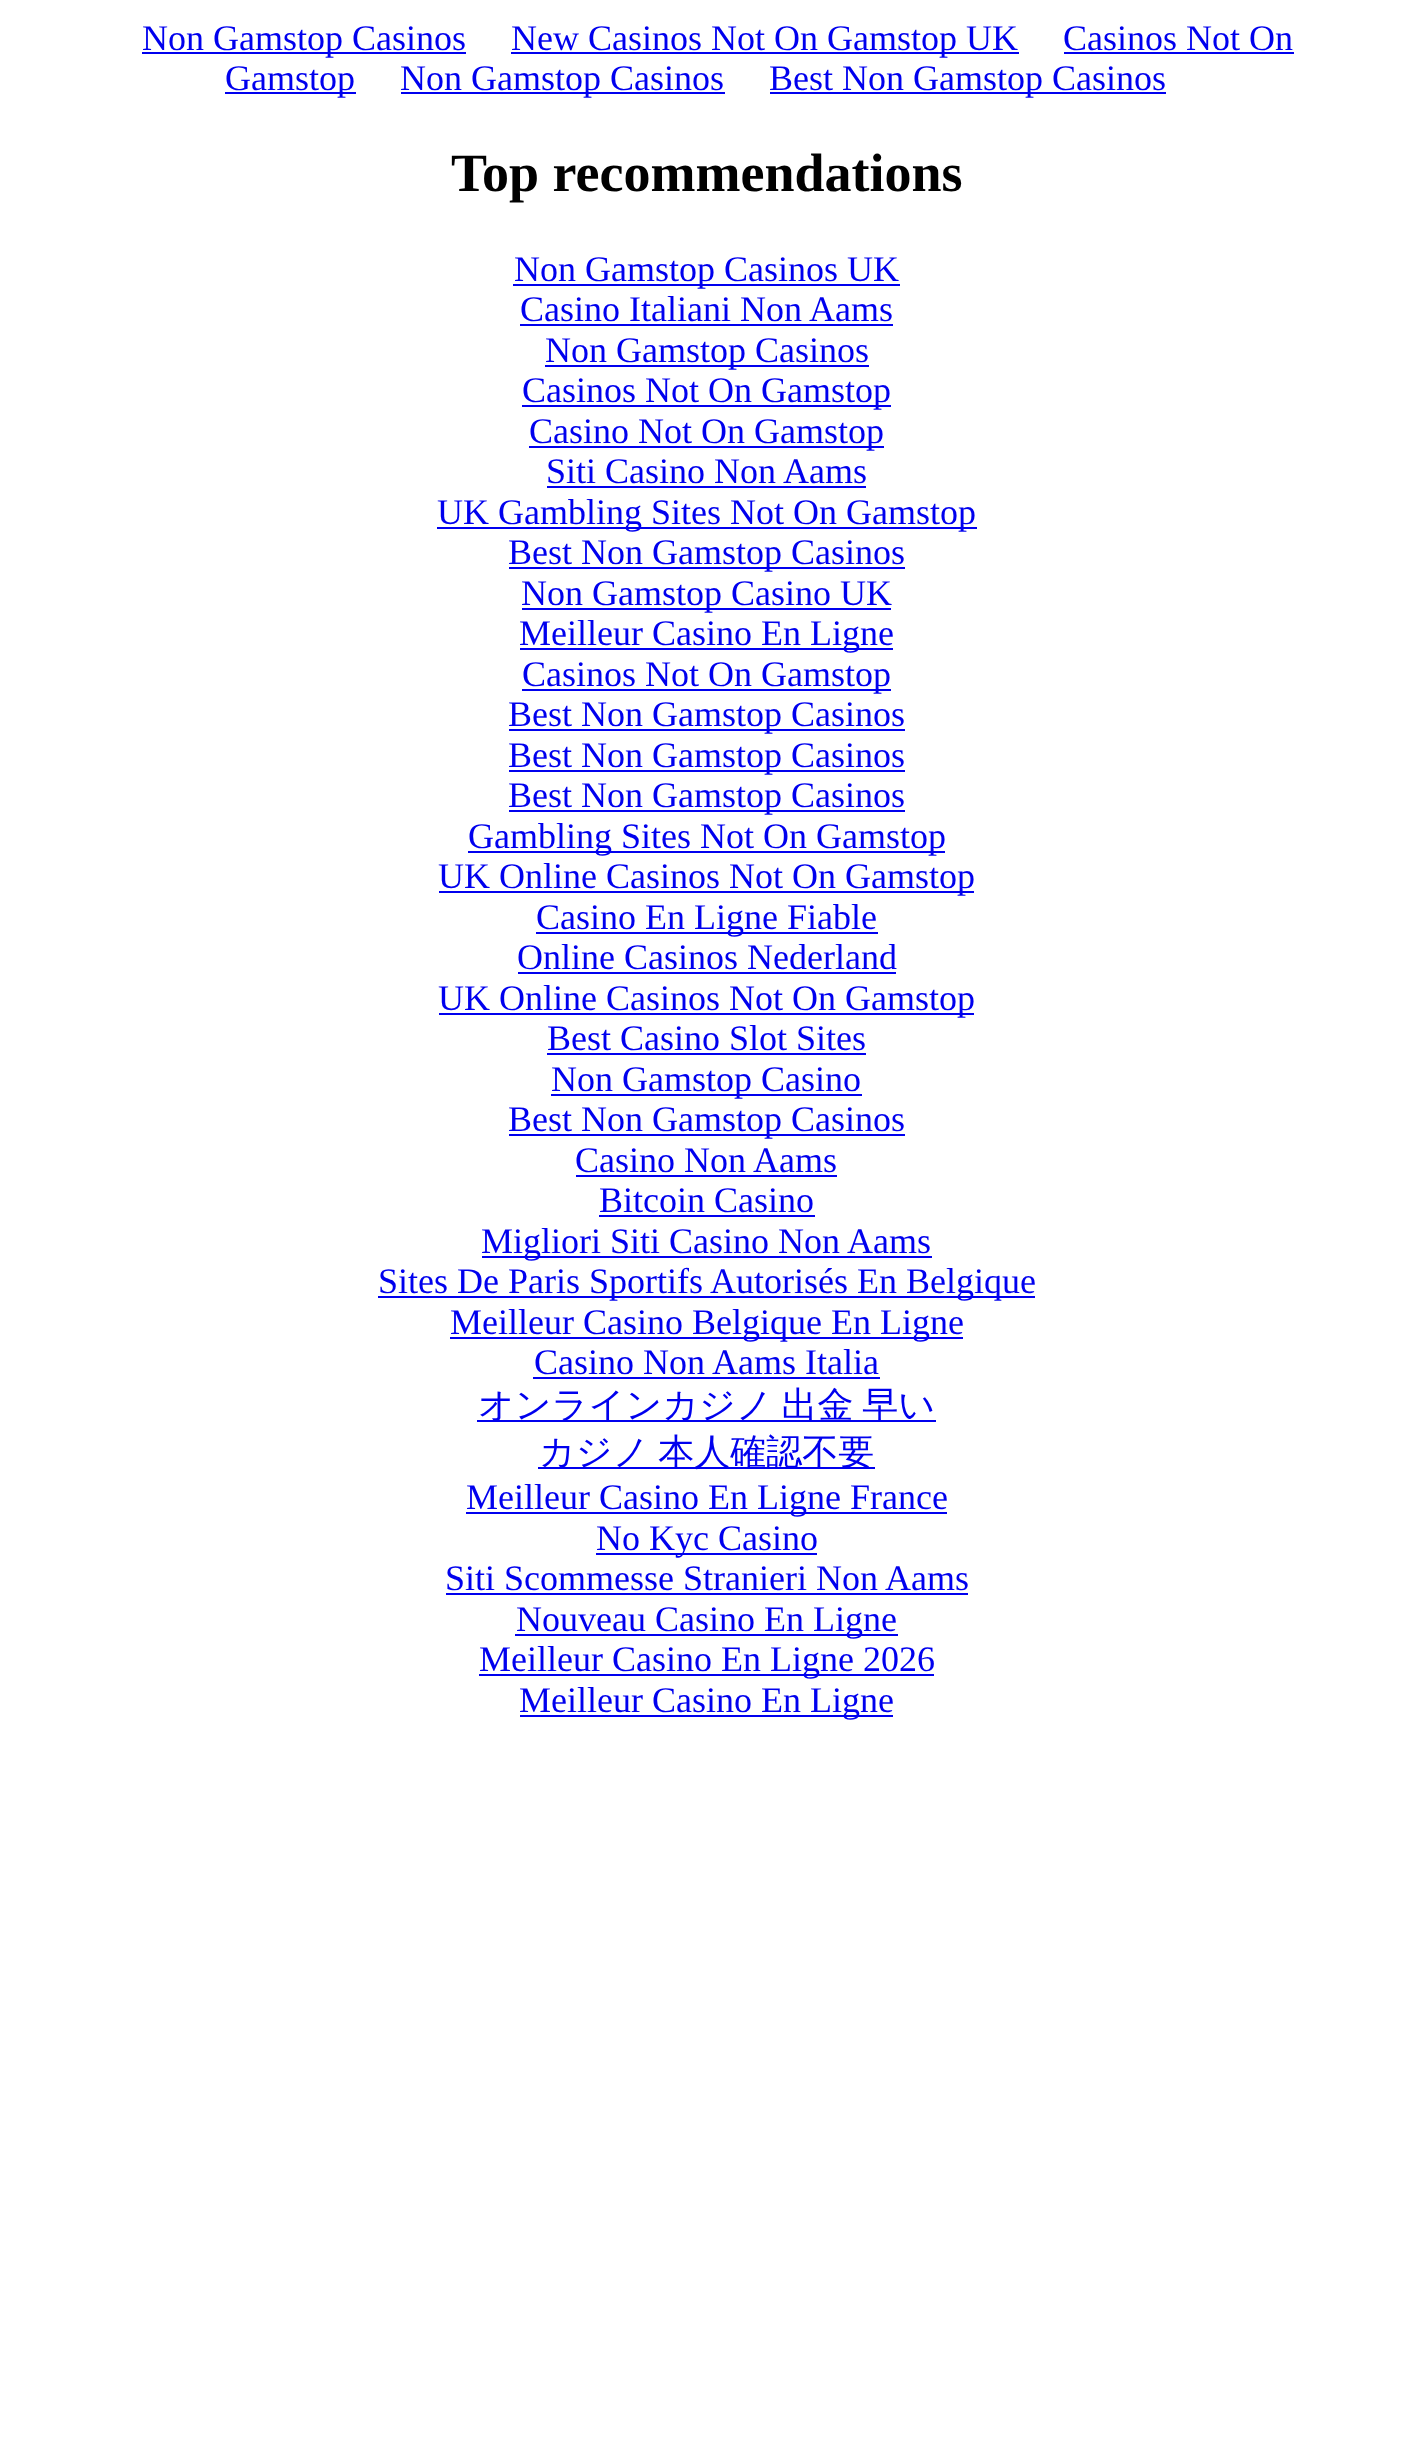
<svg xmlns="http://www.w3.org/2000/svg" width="1412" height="2440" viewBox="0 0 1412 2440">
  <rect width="100%" height="100%" fill="#ffffff"/>
  <rect x="142" y="52" width="324" height="2" fill="#0000ee"/>
  <text x="142" y="50" font-family="Liberation Serif" font-size="36" fill="#0000ee">Non Gamstop Casinos</text>
  <rect x="511" y="52" width="508" height="2" fill="#0000ee"/>
  <text x="511" y="50" font-family="Liberation Serif" font-size="36" fill="#0000ee">New Casinos Not On Gamstop UK</text>
  <text x="1063" y="50" font-family="Liberation Serif" font-size="36" fill="#0000ee">Casinos Not On</text>
  <rect x="1064" y="52" width="230" height="2" fill="#0000ee"/>
  <rect x="225" y="92" width="131" height="2" fill="#0000ee"/>
  <text x="225" y="90" font-family="Liberation Serif" font-size="36" fill="#0000ee">Gamstop</text>
  <rect x="401" y="92" width="324" height="2" fill="#0000ee"/>
  <text x="400" y="90" font-family="Liberation Serif" font-size="36" fill="#0000ee">Non Gamstop Casinos</text>
  <rect x="770" y="92" width="396" height="2" fill="#0000ee"/>
  <text x="769" y="90" font-family="Liberation Serif" font-size="36" fill="#0000ee">Best Non Gamstop Casinos</text>
  <text x="451" y="191" font-family="Liberation Serif" font-size="54" font-weight="bold" fill="#000000">Top recommendations</text>
  <rect x="513" y="284" width="387" height="2" fill="#0000ee"/>
  <text x="514" y="281" font-family="Liberation Serif" font-size="36" fill="#0000ee">Non Gamstop Casinos UK</text>
  <text x="520" y="321" font-family="Liberation Serif" font-size="36" fill="#0000ee">Casino Italiani Non Aams</text>
  <rect x="520" y="324" width="373" height="2" fill="#0000ee"/>
  <rect x="545" y="365" width="324" height="2" fill="#0000ee"/>
  <text x="545" y="362" font-family="Liberation Serif" font-size="36" fill="#0000ee">Non Gamstop Casinos</text>
  <rect x="522" y="405" width="369" height="2" fill="#0000ee"/>
  <text x="522" y="402" font-family="Liberation Serif" font-size="36" fill="#0000ee">Casinos Not On Gamstop</text>
  <rect x="529" y="446" width="355" height="2" fill="#0000ee"/>
  <text x="529" y="443" font-family="Liberation Serif" font-size="36" fill="#0000ee">Casino Not On Gamstop</text>
  <text x="546" y="483" font-family="Liberation Serif" font-size="36" fill="#0000ee">Siti Casino Non Aams</text>
  <rect x="547" y="486" width="319" height="2" fill="#0000ee"/>
  <rect x="437" y="527" width="540" height="2" fill="#0000ee"/>
  <text x="437" y="524" font-family="Liberation Serif" font-size="36" fill="#0000ee">UK Gambling Sites Not On Gamstop</text>
  <rect x="509" y="567" width="396" height="2" fill="#0000ee"/>
  <text x="508" y="564" font-family="Liberation Serif" font-size="36" fill="#0000ee">Best Non Gamstop Casinos</text>
  <rect x="522" y="608" width="369" height="2" fill="#0000ee"/>
  <text x="521" y="605" font-family="Liberation Serif" font-size="36" fill="#0000ee">Non Gamstop Casino UK</text>
  <rect x="520" y="648" width="373" height="2" fill="#0000ee"/>
  <text x="519" y="645" font-family="Liberation Serif" font-size="36" fill="#0000ee">Meilleur Casino En Ligne</text>
  <rect x="522" y="689" width="369" height="2" fill="#0000ee"/>
  <text x="522" y="686" font-family="Liberation Serif" font-size="36" fill="#0000ee">Casinos Not On Gamstop</text>
  <rect x="509" y="729" width="396" height="2" fill="#0000ee"/>
  <text x="508" y="726" font-family="Liberation Serif" font-size="36" fill="#0000ee">Best Non Gamstop Casinos</text>
  <rect x="509" y="770" width="396" height="2" fill="#0000ee"/>
  <text x="508" y="767" font-family="Liberation Serif" font-size="36" fill="#0000ee">Best Non Gamstop Casinos</text>
  <rect x="509" y="810" width="396" height="2" fill="#0000ee"/>
  <text x="508" y="807" font-family="Liberation Serif" font-size="36" fill="#0000ee">Best Non Gamstop Casinos</text>
  <rect x="468" y="851" width="477" height="2" fill="#0000ee"/>
  <text x="468" y="848" font-family="Liberation Serif" font-size="36" fill="#0000ee">Gambling Sites Not On Gamstop</text>
  <rect x="439" y="891" width="535" height="2" fill="#0000ee"/>
  <text x="438" y="888" font-family="Liberation Serif" font-size="36" fill="#0000ee">UK Online Casinos Not On Gamstop</text>
  <rect x="536" y="932" width="342" height="2" fill="#0000ee"/>
  <text x="536" y="929" font-family="Liberation Serif" font-size="36" fill="#0000ee">Casino En Ligne Fiable</text>
  <text x="517" y="969" font-family="Liberation Serif" font-size="36" fill="#0000ee">Online Casinos Nederland</text>
  <rect x="518" y="972" width="378" height="2" fill="#0000ee"/>
  <rect x="439" y="1013" width="535" height="2" fill="#0000ee"/>
  <text x="438" y="1010" font-family="Liberation Serif" font-size="36" fill="#0000ee">UK Online Casinos Not On Gamstop</text>
  <text x="547" y="1050" font-family="Liberation Serif" font-size="36" fill="#0000ee">Best Casino Slot Sites</text>
  <rect x="547" y="1053" width="319" height="2" fill="#0000ee"/>
  <rect x="551" y="1094" width="311" height="2" fill="#0000ee"/>
  <text x="551" y="1091" font-family="Liberation Serif" font-size="36" fill="#0000ee">Non Gamstop Casino</text>
  <rect x="509" y="1134" width="396" height="2" fill="#0000ee"/>
  <text x="508" y="1131" font-family="Liberation Serif" font-size="36" fill="#0000ee">Best Non Gamstop Casinos</text>
  <text x="575" y="1172" font-family="Liberation Serif" font-size="36" fill="#0000ee">Casino Non Aams</text>
  <rect x="576" y="1175" width="261" height="2" fill="#0000ee"/>
  <text x="599" y="1212" font-family="Liberation Serif" font-size="36" fill="#0000ee">Bitcoin Casino</text>
  <rect x="599" y="1215" width="216" height="2" fill="#0000ee"/>
  <rect x="482" y="1256" width="450" height="2" fill="#0000ee"/>
  <text x="481" y="1253" font-family="Liberation Serif" font-size="36" fill="#0000ee">Migliori Siti Casino Non Aams</text>
  <rect x="378" y="1296" width="657" height="2" fill="#0000ee"/>
  <text x="378" y="1293" font-family="Liberation Serif" font-size="36" fill="#0000ee">Sites De Paris Sportifs Autorisés En Belgique</text>
  <rect x="450" y="1337" width="513" height="2" fill="#0000ee"/>
  <text x="450" y="1334" font-family="Liberation Serif" font-size="36" fill="#0000ee">Meilleur Casino Belgique En Ligne</text>
  <text x="534" y="1374" font-family="Liberation Serif" font-size="36" fill="#0000ee">Casino Non Aams Italia</text>
  <rect x="533" y="1377" width="347" height="2" fill="#0000ee"/>
  <rect x="477" y="1420" width="459" height="2" fill="#0000ee"/>
  <text x="478" y="1417" word-spacing="-2" font-family="WenQuanYi Zen Hei" font-size="36" font-weight="500" fill="#0000ee">オンラインカジノ 出金 早い</text>
  <rect x="538" y="1467" width="337" height="2" fill="#0000ee"/>
  <text x="539" y="1464" word-spacing="-2" font-family="WenQuanYi Zen Hei" font-size="36" font-weight="500" fill="#0000ee">カジノ 本人確認不要</text>
  <rect x="466" y="1512" width="481" height="2" fill="#0000ee"/>
  <text x="466" y="1509" font-family="Liberation Serif" font-size="36" fill="#0000ee">Meilleur Casino En Ligne France</text>
  <rect x="596" y="1553" width="221" height="2" fill="#0000ee"/>
  <text x="596" y="1550" font-family="Liberation Serif" font-size="36" fill="#0000ee">No Kyc Casino</text>
  <text x="445" y="1590" font-family="Liberation Serif" font-size="36" fill="#0000ee">Siti Scommesse Stranieri Non Aams</text>
  <rect x="446" y="1593" width="522" height="2" fill="#0000ee"/>
  <rect x="515" y="1634" width="383" height="2" fill="#0000ee"/>
  <text x="516" y="1631" font-family="Liberation Serif" font-size="36" fill="#0000ee">Nouveau Casino En Ligne</text>
  <rect x="479" y="1674" width="455" height="2" fill="#0000ee"/>
  <text x="479" y="1671" font-family="Liberation Serif" font-size="36" fill="#0000ee">Meilleur Casino En Ligne 2026</text>
  <rect x="520" y="1715" width="373" height="2" fill="#0000ee"/>
  <text x="519" y="1712" font-family="Liberation Serif" font-size="36" fill="#0000ee">Meilleur Casino En Ligne</text>
</svg>
